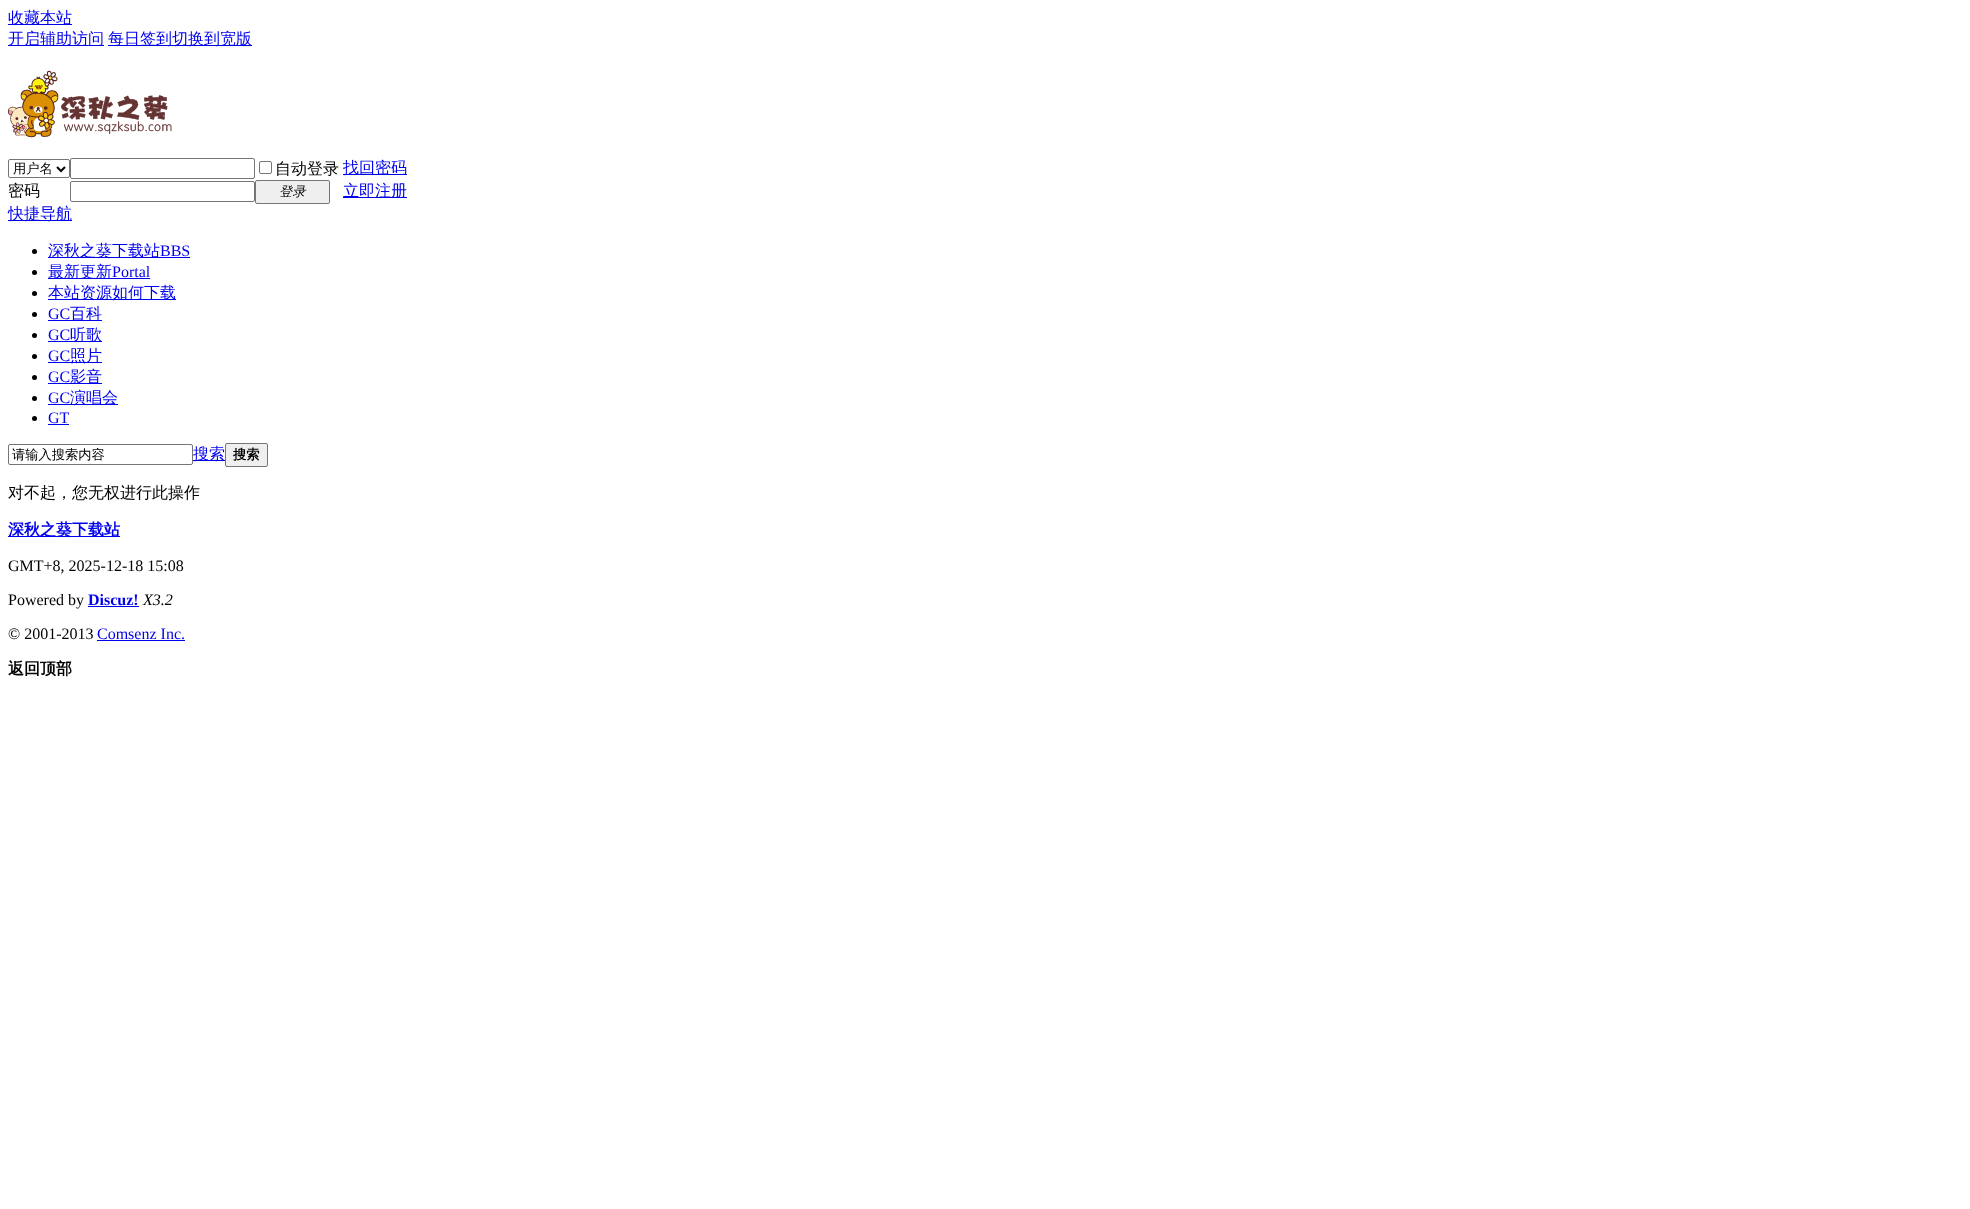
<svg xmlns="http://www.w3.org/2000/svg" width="1970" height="1209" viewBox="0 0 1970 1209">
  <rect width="100%" height="100%" fill="#ffffff"/>
  <rect x="8" y="24" width="64" height="1" fill="#0000ee"/>
  <text x="8" y="23" font-family="WenQuanYi Zen Hei" font-size="16" font-weight="500" fill="#0000ee">收藏本站</text>
  <rect x="8" y="45" width="96" height="1" fill="#0000ee"/>
  <text x="8" y="44" font-family="WenQuanYi Zen Hei" font-size="16" font-weight="500" fill="#0000ee">开启辅助访问</text>
  <rect x="108" y="45" width="144" height="1" fill="#0000ee"/>
  <text x="108" y="44" font-family="WenQuanYi Zen Hei" font-size="16" font-weight="500" fill="#0000ee">每日签到切换到宽版</text>
  <image x="8" y="70" width="164" height="68" href="img1.png"/>
  <rect x="8.5" y="159.5" width="61" height="18" rx="1.5" fill="none" stroke="#767676"/>
  <path d="M57 167L61 171L65 167" fill="none" stroke="#000000" stroke-width="2"/>
  <text x="13" y="173" font-family="WenQuanYi Zen Hei" font-size="13.25" font-weight="500" fill="#000000">用户名</text>
  <rect x="70.5" y="158.5" width="184" height="20" rx="1.5" fill="none" stroke="#767676"/>
  <rect x="259.5" y="161.5" width="12" height="12" rx="1.5" fill="none" stroke="#767676"/>
  <text x="275" y="174" font-family="WenQuanYi Zen Hei" font-size="16" font-weight="500" fill="#000000">自动登录</text>
  <rect x="343" y="174" width="64" height="1" fill="#0000ee"/>
  <text x="343" y="173" font-family="WenQuanYi Zen Hei" font-size="16" font-weight="500" fill="#0000ee">找回密码</text>
  <text x="8" y="196" font-family="WenQuanYi Zen Hei" font-size="16" font-weight="500" fill="#000000">密码</text>
  <rect x="70.5" y="181.5" width="184" height="20" rx="1.5" fill="none" stroke="#767676"/>
  <rect x="255.5" y="180.5" width="74" height="23" rx="1.5" fill="#efefef" stroke="#767676"/>
  <text x="279" y="196" font-family="WenQuanYi Zen Hei" font-size="13.25" font-weight="500" font-style="italic" fill="#000000">登录</text>
  <rect x="343" y="197" width="64" height="1" fill="#0000ee"/>
  <text x="343" y="196" font-family="WenQuanYi Zen Hei" font-size="16" font-weight="500" fill="#0000ee">立即注册</text>
  <rect x="8" y="220" width="64" height="1" fill="#0000ee"/>
  <text x="8" y="219" font-family="WenQuanYi Zen Hei" font-size="16" font-weight="500" fill="#0000ee">快捷导航</text>
  <circle cx="34.5" cy="251.5" r="2.5" fill="#000000"/>
  <rect x="48" y="257" width="142" height="1" fill="#0000ee"/>
  <text x="48" y="256" font-family="WenQuanYi Zen Hei" font-size="16" font-weight="500" fill="#0000ee">深秋之葵下载站</text>
  <text x="160" y="256" font-family="Liberation Serif" font-size="16" fill="#0000ee">BBS</text>
  <circle cx="34.5" cy="272.5" r="2.5" fill="#000000"/>
  <rect x="48" y="278" width="102" height="1" fill="#0000ee"/>
  <text x="48" y="277" font-family="WenQuanYi Zen Hei" font-size="16" font-weight="500" fill="#0000ee">最新更新</text>
  <text x="112" y="277" font-family="Liberation Serif" font-size="16" fill="#0000ee">Portal</text>
  <circle cx="34.5" cy="293.5" r="2.5" fill="#000000"/>
  <rect x="48" y="299" width="128" height="1" fill="#0000ee"/>
  <text x="48" y="298" font-family="WenQuanYi Zen Hei" font-size="16" font-weight="500" fill="#0000ee">本站资源如何下载</text>
  <circle cx="34.5" cy="314.5" r="2.5" fill="#000000"/>
  <text x="48" y="319" font-family="Liberation Serif" font-size="16" fill="#0000ee">GC</text>
  <rect x="48" y="320" width="54" height="1" fill="#0000ee"/>
  <text x="70" y="319" font-family="WenQuanYi Zen Hei" font-size="16" font-weight="500" fill="#0000ee">百科</text>
  <circle cx="34.5" cy="335.5" r="2.5" fill="#000000"/>
  <text x="48" y="340" font-family="Liberation Serif" font-size="16" fill="#0000ee">GC</text>
  <rect x="48" y="341" width="54" height="1" fill="#0000ee"/>
  <text x="70" y="340" font-family="WenQuanYi Zen Hei" font-size="16" font-weight="500" fill="#0000ee">听歌</text>
  <circle cx="34.5" cy="356.5" r="2.5" fill="#000000"/>
  <text x="48" y="361" font-family="Liberation Serif" font-size="16" fill="#0000ee">GC</text>
  <rect x="48" y="362" width="54" height="1" fill="#0000ee"/>
  <text x="70" y="361" font-family="WenQuanYi Zen Hei" font-size="16" font-weight="500" fill="#0000ee">照片</text>
  <circle cx="34.5" cy="377.5" r="2.5" fill="#000000"/>
  <text x="48" y="382" font-family="Liberation Serif" font-size="16" fill="#0000ee">GC</text>
  <rect x="48" y="383" width="54" height="1" fill="#0000ee"/>
  <text x="70" y="382" font-family="WenQuanYi Zen Hei" font-size="16" font-weight="500" fill="#0000ee">影音</text>
  <circle cx="34.5" cy="398.5" r="2.5" fill="#000000"/>
  <text x="48" y="403" font-family="Liberation Serif" font-size="16" fill="#0000ee">GC</text>
  <rect x="48" y="404" width="70" height="1" fill="#0000ee"/>
  <text x="70" y="403" font-family="WenQuanYi Zen Hei" font-size="16" font-weight="500" fill="#0000ee">演唱会</text>
  <circle cx="34.5" cy="418.5" r="2.5" fill="#000000"/>
  <text x="48" y="423" font-family="Liberation Serif" font-size="16" fill="#0000ee">GT</text>
  <rect x="48" y="424" width="21" height="1" fill="#0000ee"/>
  <rect x="8.5" y="444.5" width="184" height="20" rx="1.5" fill="none" stroke="#767676"/>
  <text x="12" y="459" font-family="WenQuanYi Zen Hei" font-size="13.25" font-weight="500" fill="#000000">请输入搜索内容</text>
  <rect x="193" y="460" width="32" height="1" fill="#0000ee"/>
  <text x="193" y="459" font-family="WenQuanYi Zen Hei" font-size="16" font-weight="500" fill="#0000ee">搜索</text>
  <rect x="225.5" y="443.5" width="42" height="23" rx="1.5" fill="#efefef" stroke="#767676"/>
  <text x="233" y="459" font-family="WenQuanYi Zen Hei" font-size="13.25" font-weight="bold" fill="#000000">搜索</text>
  <text x="8" y="498" font-family="WenQuanYi Zen Hei" font-size="16" font-weight="500" fill="#000000">对不起，您无权进行此操作</text>
  <rect x="8" y="536" width="112" height="1" fill="#0000ee"/>
  <text x="8" y="535" font-family="WenQuanYi Zen Hei" font-size="16" font-weight="bold" fill="#0000ee">深秋之葵下载站</text>
  <text x="8" y="571" font-family="Liberation Serif" font-size="16" fill="#000000">GMT+8, 2025-12-18 15:08</text>
  <text x="8" y="605" font-family="Liberation Serif" font-size="16" fill="#000000">Powered by</text>
  <text x="88" y="605" font-family="Liberation Serif" font-size="16" font-weight="bold" fill="#0000ee">Discuz!</text>
  <rect x="88" y="606" width="51" height="1" fill="#0000ee"/>
  <text x="143" y="605" font-family="Liberation Serif" font-size="16" font-style="italic" fill="#000000">X3.2</text>
  <text x="8" y="639" font-family="Liberation Serif" font-size="16" fill="#000000">© 2001-2013</text>
  <text x="97" y="639" font-family="Liberation Serif" font-size="16" fill="#0000ee">Comsenz Inc.</text>
  <rect x="97" y="640" width="88" height="1" fill="#0000ee"/>
  <text x="8" y="674" font-family="WenQuanYi Zen Hei" font-size="16" font-weight="bold" fill="#000000">返回顶部</text>
</svg>
